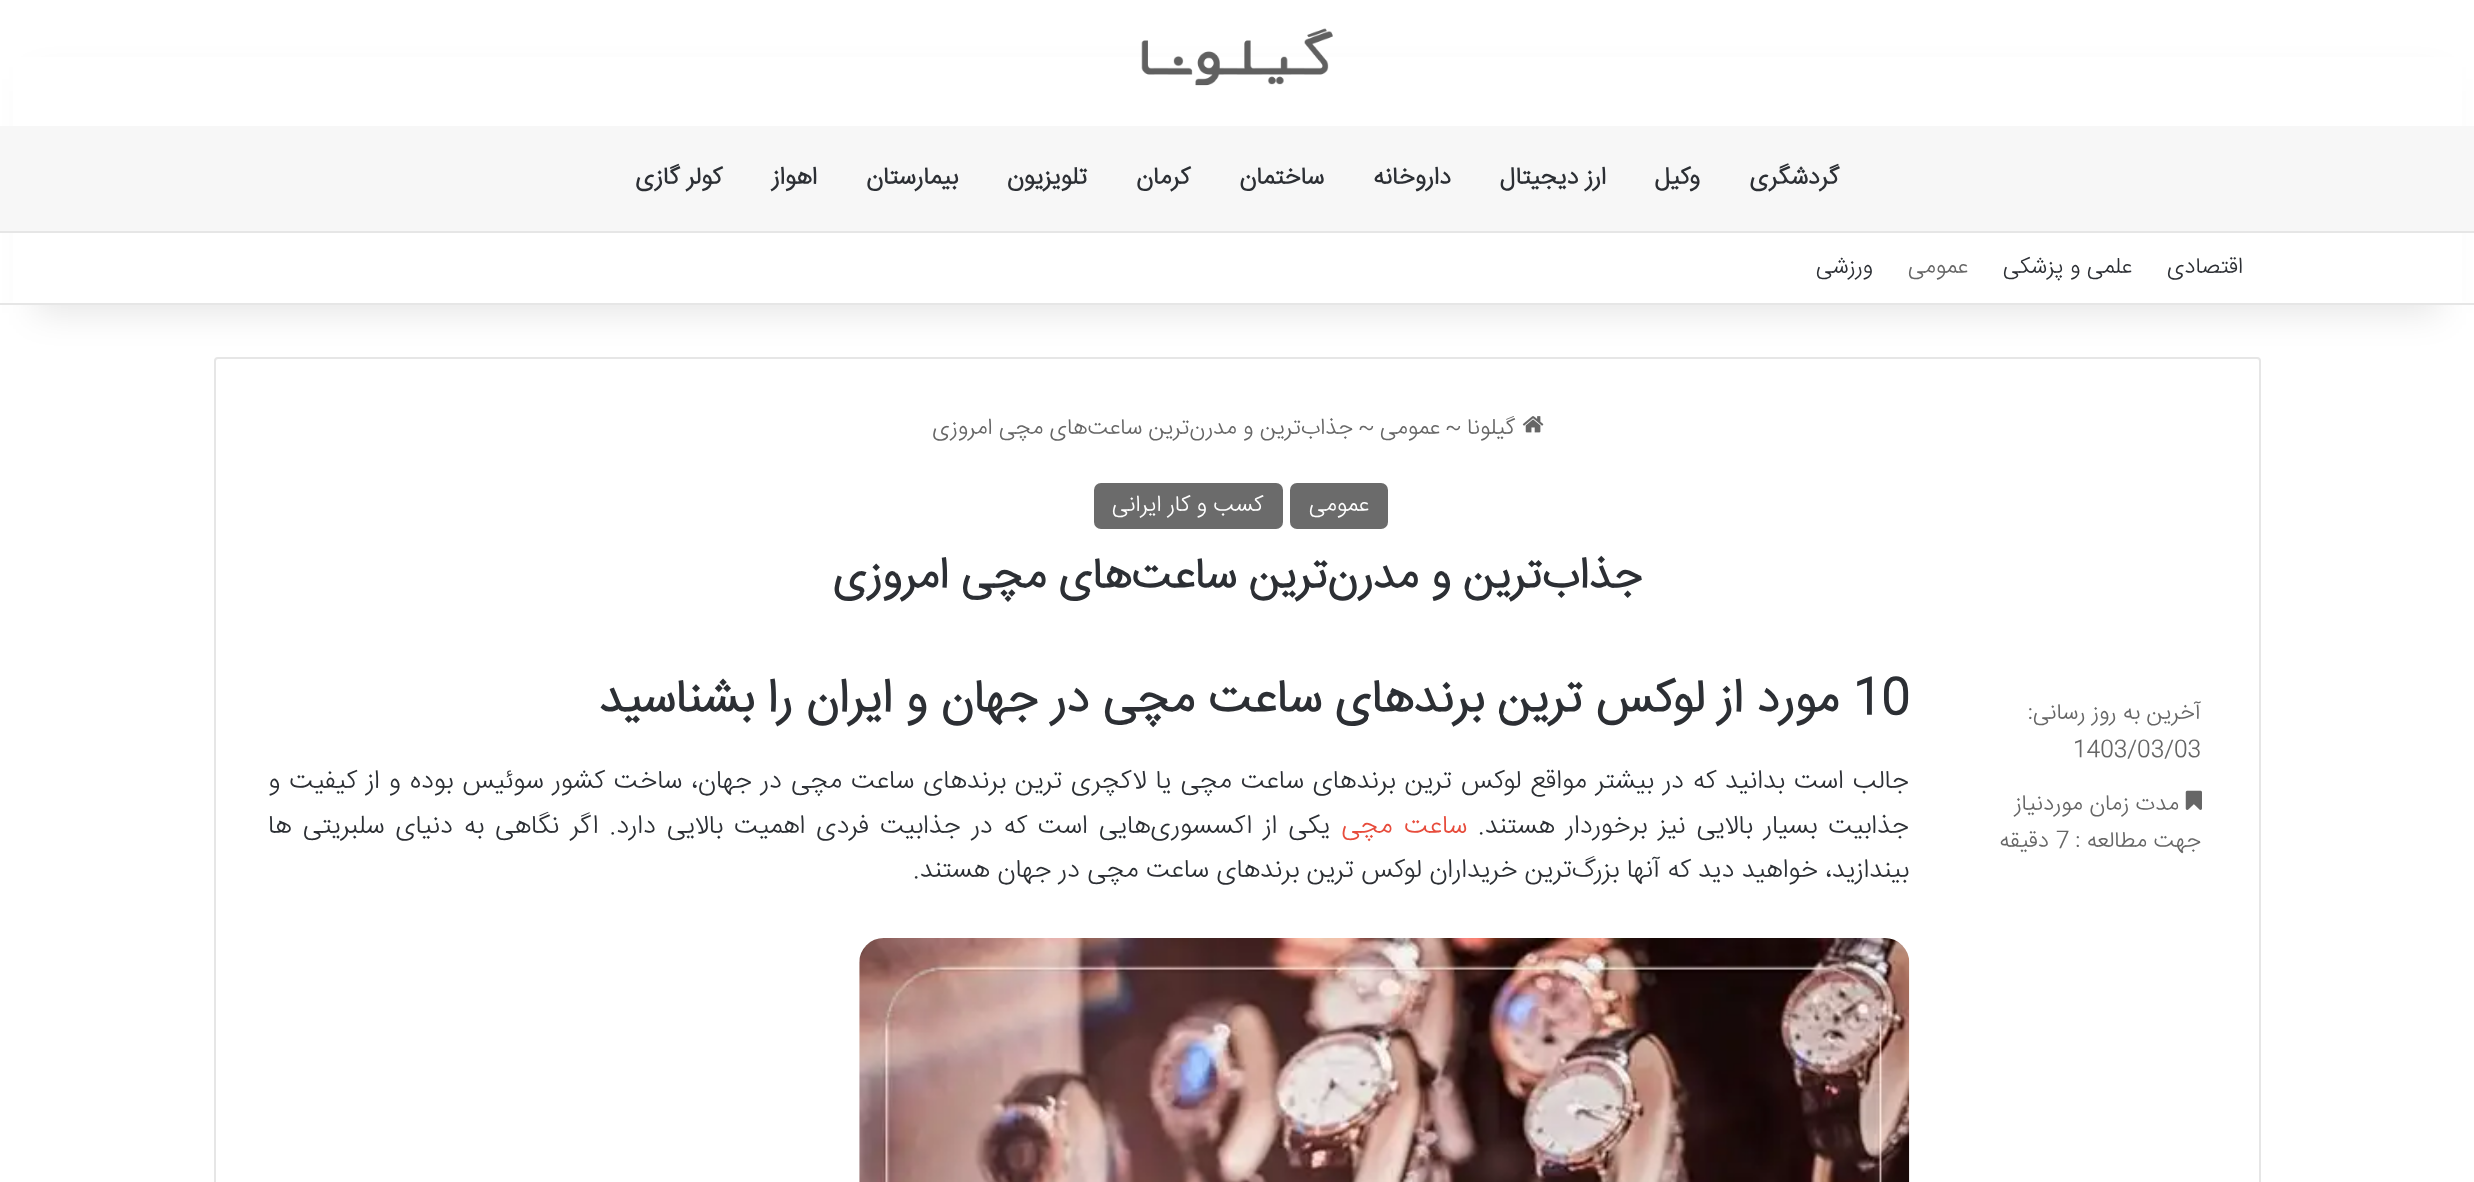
<svg xmlns="http://www.w3.org/2000/svg" width="2474" height="1182" viewBox="0 0 2474 1182">
  <defs>
    <filter id="blur1" x="-50%" y="-200%" width="200%" height="500%"><feGaussianBlur stdDeviation="17.5"/></filter>
  </defs>
  <rect width="100%" height="100%" fill="#ffffff"/>
  <rect x="215" y="358" width="2045" height="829" rx="3" fill="none" stroke="#e6e6e6" stroke-width="2"/>
  <rect x="35" y="79" width="2405" height="234" fill="#000000" fill-opacity="0.1" filter="url(#blur1)"/>
  <rect x="13" y="57" width="2449" height="246" fill="#ffffff"/>
  <image x="1141" y="28" width="192" height="58" href="img1.png"/>
  <rect x="0" y="126" width="2474" height="105" fill="#f7f7f7"/>
  <text x="1839" y="184" font-family="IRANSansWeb" font-size="24.5" font-weight="bold" direction="rtl" fill="#2c2f34">گردشگری</text>
  <text x="1700" y="184" font-family="IRANSansWeb" font-size="24.5" font-weight="bold" direction="rtl" fill="#2c2f34">وکیل</text>
  <text x="1606" y="184" font-family="IRANSansWeb" font-size="24.5" font-weight="bold" direction="rtl" fill="#2c2f34">ارز دیجیتال</text>
  <text x="1451" y="184" font-family="IRANSansWeb" font-size="24.5" font-weight="bold" direction="rtl" fill="#2c2f34">داروخانه</text>
  <text x="1324" y="184" font-family="IRANSansWeb" font-size="24.5" font-weight="bold" direction="rtl" fill="#2c2f34">ساختمان</text>
  <text x="1190" y="184" font-family="IRANSansWeb" font-size="24.5" font-weight="bold" direction="rtl" fill="#2c2f34">کرمان</text>
  <text x="1087" y="184" font-family="IRANSansWeb" font-size="24.5" font-weight="bold" direction="rtl" fill="#2c2f34">تلویزیون</text>
  <text x="958" y="184" font-family="IRANSansWeb" font-size="24.5" font-weight="bold" direction="rtl" fill="#2c2f34">بیمارستان</text>
  <text x="817" y="184" font-family="IRANSansWeb" font-size="24.5" font-weight="bold" direction="rtl" fill="#2c2f34">اهواز</text>
  <text x="722" y="184" font-family="IRANSansWeb" font-size="24.5" font-weight="bold" direction="rtl" fill="#2c2f34">کولر گازی</text>
  <rect x="0" y="231" width="2474" height="2" fill="#e6e6e6"/>
  <rect x="0" y="303" width="2474" height="2" fill="#e6e6e6"/>
  <text x="2243" y="273" font-family="IRANSansWeb" font-size="22.75" font-weight="300" direction="rtl" fill="#2c2f34">اقتصادی</text>
  <text x="2132" y="273" font-family="IRANSansWeb" font-size="22.75" font-weight="300" direction="rtl" fill="#2c2f34">علمی و پزشکی</text>
  <text x="1968" y="273" font-family="IRANSansWeb" font-size="22.75" font-weight="300" direction="rtl" fill="#666666">عمومی</text>
  <text x="1873" y="273" font-family="IRANSansWeb" font-size="22.75" font-weight="300" direction="rtl" fill="#2c2f34">ورزشی</text>
  <image x="1522" y="416" width="22" height="17" href="img2.png"/>
  <text x="1515" y="434" font-family="IRANSansWeb" font-size="22.75" font-weight="300" direction="rtl" fill="#666666">گیلونا</text>
  <text x="1445" y="434" font-family="IRANSansWeb" font-size="22.75" font-weight="300" fill="#666666">~</text>
  <text x="1440" y="434" font-family="IRANSansWeb" font-size="22.75" font-weight="300" direction="rtl" fill="#666666">عمومی</text>
  <text x="1358" y="434" font-family="IRANSansWeb" font-size="22.75" font-weight="300" fill="#666666">~</text>
  <text x="1353" y="434" font-family="IRANSansWeb" font-size="22.75" font-weight="300" direction="rtl" fill="#666666">جذاب‌ترین و مدرن‌ترین ساعت‌های مچی امروزی</text>
  <rect x="1290" y="483" width="98" height="46" rx="7" fill="#6b6b6b"/>
  <text x="1369" y="511" font-family="IRANSansWeb" font-size="22.75" font-weight="300" direction="rtl" fill="#ffffff">عمومی</text>
  <rect x="1094" y="483" width="189" height="46" rx="7" fill="#6b6b6b"/>
  <text x="1263" y="511" font-family="IRANSansWeb" font-size="22.75" font-weight="300" direction="rtl" fill="#ffffff">کسب و کار ایرانی</text>
  <text x="1642" y="588" font-family="IRANSansWeb" font-size="43.75" font-weight="bold" direction="rtl" fill="#2c2f34">جذاب‌ترین و مدرن‌ترین ساعت‌های مچی امروزی</text>
  <text x="2201" y="719" font-family="IRANSansWeb" font-size="22.75" font-weight="300" direction="rtl" fill="#666666">آخرین به روز رسانی:</text>
  <text x="2073" y="756" font-family="IRANSansWeb" font-size="22.75" font-weight="300" fill="#666666">1403/03/03</text>
  <image x="2185" y="790" width="17" height="20" href="img3.png"/>
  <text x="2179" y="810" font-family="IRANSansWeb" font-size="22.75" font-weight="300" direction="rtl" fill="#666666">مدت زمان موردنیاز</text>
  <text x="2201" y="847" font-family="IRANSansWeb" font-size="22.75" font-weight="300" direction="rtl" fill="#666666">جهت مطالعه :</text>
  <text x="2056" y="847" font-family="IRANSansWeb" font-size="22.75" font-weight="300" fill="#666666">7</text>
  <text x="2049" y="847" font-family="IRANSansWeb" font-size="22.75" font-weight="300" direction="rtl" fill="#666666">دقیقه</text>
  <text x="1853" y="712" font-family="IRANSansWeb" font-size="47.25" font-weight="bold" fill="#2c2f34">10</text>
  <text x="1839" y="712" font-family="IRANSansWeb" font-size="47.25" font-weight="bold" direction="rtl" fill="#2c2f34">مورد از لوکس ترین برندهای ساعت مچی در جهان و ایران را بشناسید</text>
  <text x="1909" y="788" word-spacing="1.6" font-family="IRANSansWeb" font-size="26.25" font-weight="300" direction="rtl" fill="#2c2f34">جالب است بدانید که در بیشتر مواقع لوکس ترین برندهای ساعت مچی یا لاکچری ترین برندهای ساعت مچی در جهان، ساخت کشور سوئیس بوده و از کیفیت و</text>
  <text x="1909" y="833" word-spacing="3.6" font-family="IRANSansWeb" font-size="26.25" font-weight="300" direction="rtl" fill="#2c2f34">جذابیت بسیار بالایی نیز برخوردار هستند.</text>
  <text x="1467" y="833" word-spacing="4" font-family="IRANSansWeb" font-size="26.25" font-weight="300" direction="rtl" fill="#e74c3c">ساعت مچی</text>
  <text x="1330" y="833" word-spacing="3.6" font-family="IRANSansWeb" font-size="26.25" font-weight="300" direction="rtl" fill="#2c2f34">یکی از اکسسوری‌هایی است که در جذابیت فردی اهمیت بالایی دارد. اگر نگاهی به دنیای سلبریتی ها</text>
  <text x="1909" y="877" font-family="IRANSansWeb" font-size="26.25" font-weight="300" direction="rtl" fill="#2c2f34">بیندازید، خواهید دید که آنها بزرگ‌ترین خریداران لوکس ترین برندهای ساعت مچی در جهان هستند.</text>
  <image x="859" y="938" width="1051" height="244" href="img4.png"/>
</svg>
